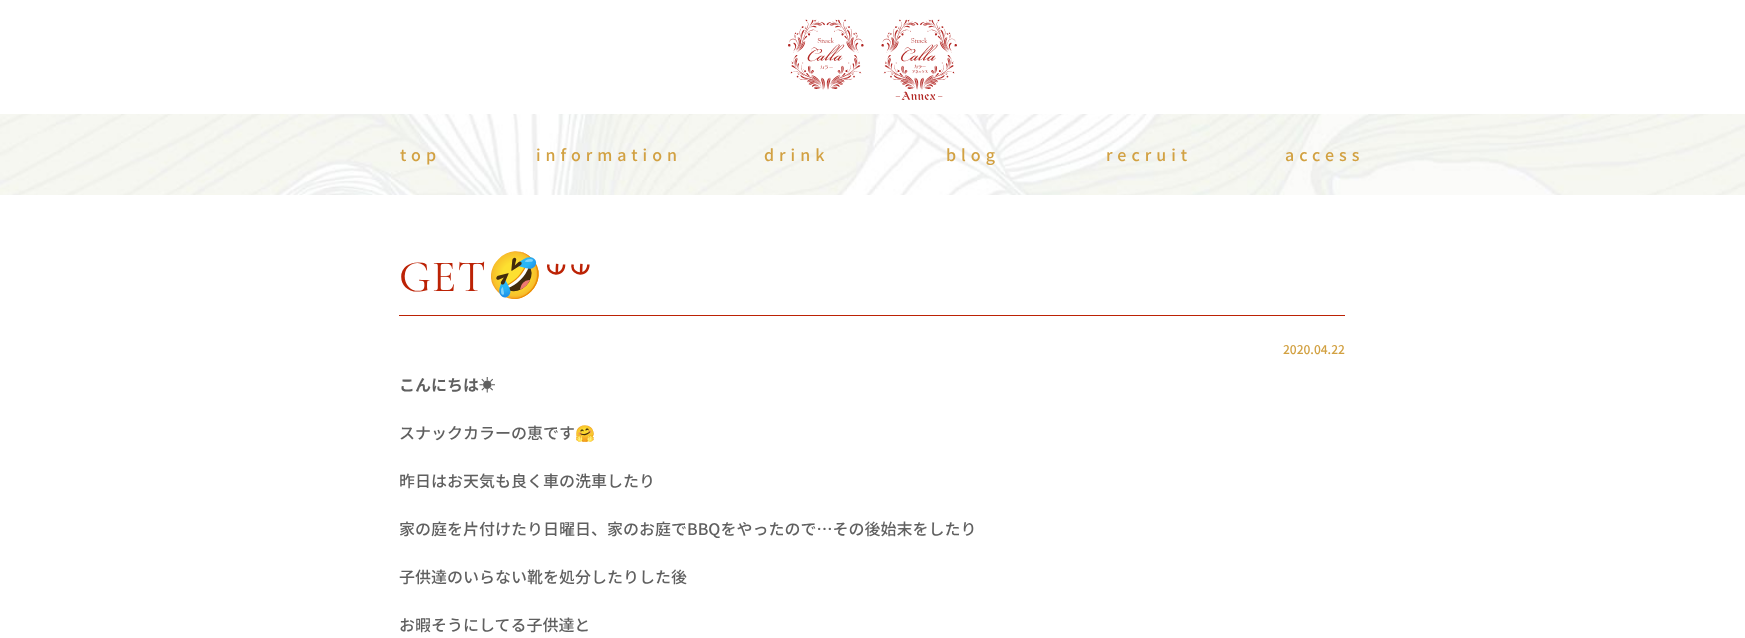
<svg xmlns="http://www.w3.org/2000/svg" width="1745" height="638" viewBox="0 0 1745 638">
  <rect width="100%" height="100%" fill="#ffffff"/>
  <image x="788" y="19" width="169" height="81" href="img1.png"/>
  <image x="0" y="114" width="1745" height="81" href="img2.png"/>
  <text x="400" y="161" font-family="Noto Sans JP" font-size="16" font-weight="500" letter-spacing="5" fill="#d2a142">top</text>
  <text x="536" y="161" font-family="Noto Sans JP" font-size="16" font-weight="500" letter-spacing="5" fill="#d2a142">information</text>
  <text x="764" y="161" font-family="Noto Sans JP" font-size="16" font-weight="500" letter-spacing="5" fill="#d2a142">drink</text>
  <text x="946" y="161" font-family="Noto Sans JP" font-size="16" font-weight="500" letter-spacing="5" fill="#d2a142">blog</text>
  <text x="1106" y="161" font-family="Noto Sans JP" font-size="16" font-weight="500" letter-spacing="5" fill="#d2a142">recruit</text>
  <text x="1285" y="161" font-family="Noto Sans JP" font-size="16" font-weight="500" letter-spacing="5" fill="#d2a142">access</text>
  <rect x="399" y="315" width="946" height="1" fill="#bc2205"/>
  <text x="399" y="291" font-family="Cormorant Garamond" font-size="45" font-weight="300" letter-spacing="1" fill="#bc2205">GET</text>
  <text x="487" y="291" font-family="Noto Color Emoji" font-size="45" letter-spacing="1" fill="#bc2205">🤣</text>
  <text x="593" y="291" font-family="FreeSans" font-size="45" letter-spacing="1" direction="rtl" fill="#bc2205">𐤔𐤔</text>
  <text x="1283" y="354" font-family="Noto Sans JP" font-size="12" font-weight="500" fill="#d2a142">2020.04.22</text>
  <text x="399" y="391" font-family="Noto Sans JP" font-size="16" font-weight="bold" fill="#606060">こんにちは</text>
  <text x="479" y="391" font-family="IPAPGothic" font-size="16" font-weight="bold" fill="#606060">☀</text>
  <text x="399" y="439" font-family="Noto Sans JP" font-size="16" font-weight="500" fill="#606060">スナックカラーの恵です</text>
  <text x="575" y="439" font-family="Noto Color Emoji" font-size="16" fill="#606060">🤗</text>
  <text x="399" y="487" font-family="Noto Sans JP" font-size="16" font-weight="500" fill="#606060">昨日はお天気も良く車の洗車したり</text>
  <text x="399" y="535" font-family="Noto Sans JP" font-size="16" font-weight="500" fill="#606060">家の庭を片付けたり日曜日、家のお庭でBBQをやったので…その後始末をしたり</text>
  <text x="399" y="583" font-family="Noto Sans JP" font-size="16" font-weight="500" fill="#606060">子供達のいらない靴を処分したりした後</text>
  <text x="399" y="631" font-family="Noto Sans JP" font-size="16" font-weight="500" fill="#606060">お暇そうにしてる子供達と</text>
</svg>
